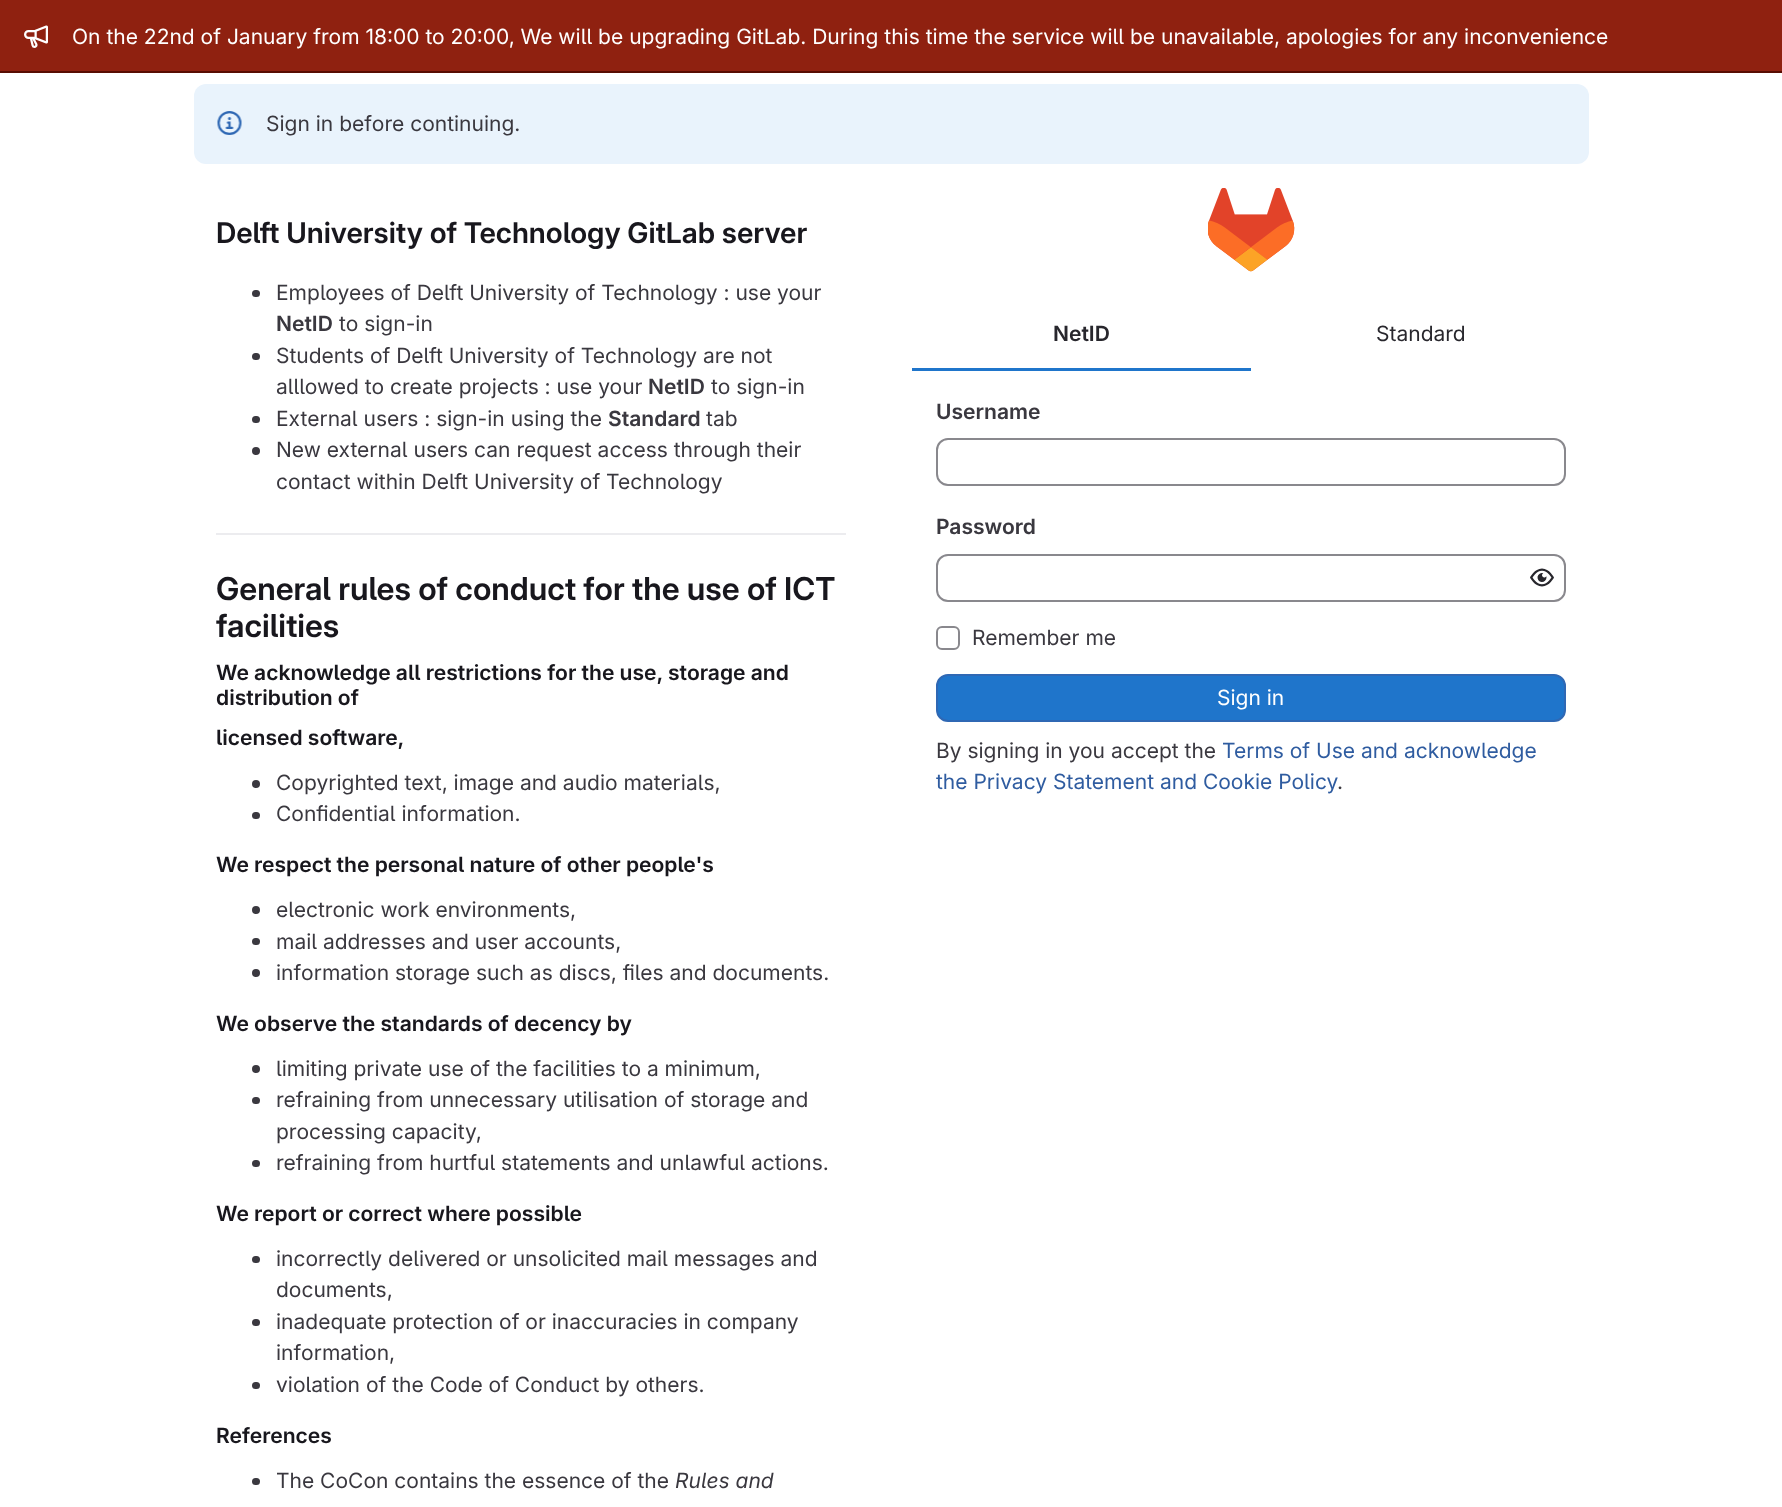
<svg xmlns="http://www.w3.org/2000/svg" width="1782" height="1507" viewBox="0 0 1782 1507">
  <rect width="100%" height="100%" fill="#ffffff"/>
  <rect x="0" y="0" width="1782" height="71" fill="#8f2110"/>
  <rect x="0" y="71" width="1782" height="2" fill="#580d02"/>
  <image x="24" y="25" width="24" height="23" href="img1.png"/>
  <text x="72" y="44" font-family="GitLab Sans" font-size="21" fill="#ffffff">On the 22nd of January from 18:00 to 20:00, We will be upgrading GitLab. During this time the service will be unavailable, apologies for any inconvenience</text>
  <rect x="194" y="84" width="1395" height="80" rx="12" fill="#e9f3fc"/>
  <image x="217" y="111" width="25" height="24" href="img2.png"/>
  <text x="266" y="131" font-family="GitLab Sans" font-size="21" fill="#3a383f">Sign in before continuing.</text>
  <text x="216" y="243" font-family="GitLab Sans" font-size="28.5" font-weight="600" fill="#18171d">Delft University of Technology GitLab server</text>
  <rect x="252" y="290" width="8" height="7" rx="3.5" fill="#3a383f"/>
  <text x="276" y="300" font-family="GitLab Sans" font-size="21" fill="#3a383f">Employees of Delft University of Technology : use your</text>
  <text x="276" y="331" font-family="'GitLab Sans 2'" font-size="21" font-weight="600" fill="#3a383f">NetID</text>
  <text x="339" y="331" font-family="GitLab Sans" font-size="21" fill="#3a383f">to sign-in</text>
  <rect x="252" y="353" width="8" height="7" rx="3.5" fill="#3a383f"/>
  <text x="276" y="363" font-family="GitLab Sans" font-size="21" fill="#3a383f">Students of Delft University of Technology are not</text>
  <text x="276" y="394" font-family="GitLab Sans" font-size="21" fill="#3a383f">alllowed to create projects : use your</text>
  <text x="648" y="394" font-family="'GitLab Sans 2'" font-size="21" font-weight="600" fill="#3a383f">NetID</text>
  <text x="711" y="394" font-family="GitLab Sans" font-size="21" fill="#3a383f">to sign-in</text>
  <rect x="252" y="416" width="8" height="7" rx="3.5" fill="#3a383f"/>
  <text x="276" y="426" font-family="GitLab Sans" font-size="21" fill="#3a383f">External users : sign-in using the</text>
  <text x="608" y="426" font-family="'GitLab Sans 2'" font-size="21" font-weight="600" fill="#3a383f">Standard</text>
  <text x="706" y="426" font-family="GitLab Sans" font-size="21" fill="#3a383f">tab</text>
  <circle cx="256" cy="451" r="4" fill="#3a383f"/>
  <text x="276" y="457" font-family="GitLab Sans" font-size="21" fill="#3a383f">New external users can request access through their</text>
  <text x="276" y="489" font-family="GitLab Sans" font-size="21" fill="#3a383f">contact within Delft University of Technology</text>
  <rect x="216" y="533" width="630" height="2" fill="#ececef"/>
  <text x="216" y="600" font-family="'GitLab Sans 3'" font-size="31.5" font-weight="600" fill="#18171d">General rules of conduct for the use of ICT</text>
  <text x="216" y="637" font-family="'GitLab Sans 3'" font-size="31.5" font-weight="600" fill="#18171d">facilities</text>
  <text x="216" y="680" font-family="'GitLab Sans 2'" font-size="21" font-weight="600" fill="#18171d">We acknowledge all restrictions for the use, storage and</text>
  <text x="216" y="705" font-family="'GitLab Sans 2'" font-size="21" font-weight="600" fill="#18171d">distribution of</text>
  <text x="216" y="745" font-family="'GitLab Sans 2'" font-size="21" font-weight="600" fill="#18171d">licensed software,</text>
  <circle cx="256" cy="784" r="4" fill="#3a383f"/>
  <text x="276" y="790" font-family="GitLab Sans" font-size="21" fill="#3a383f">Copyrighted text, image and audio materials,</text>
  <rect x="252" y="812" width="8" height="7" rx="3.5" fill="#3a383f"/>
  <text x="276" y="821" font-family="GitLab Sans" font-size="21" fill="#3a383f">Confidential information.</text>
  <text x="216" y="872" font-family="'GitLab Sans 2'" font-size="21" font-weight="600" fill="#18171d">We respect the personal nature of other people's</text>
  <circle cx="256" cy="910" r="4" fill="#3a383f"/>
  <text x="276" y="917" font-family="GitLab Sans" font-size="21" fill="#3a383f">electronic work environments,</text>
  <rect x="252" y="938" width="8" height="7" rx="3.5" fill="#3a383f"/>
  <text x="276" y="949" font-family="GitLab Sans" font-size="21" fill="#3a383f">mail addresses and user accounts,</text>
  <circle cx="256" cy="973" r="4" fill="#3a383f"/>
  <text x="276" y="980" font-family="GitLab Sans" font-size="21" fill="#3a383f">information storage such as discs, files and documents.</text>
  <text x="216" y="1031" font-family="'GitLab Sans 2'" font-size="21" font-weight="600" fill="#18171d">We observe the standards of decency by</text>
  <circle cx="256" cy="1069" r="4" fill="#3a383f"/>
  <text x="276" y="1076" font-family="GitLab Sans" font-size="21" fill="#3a383f">limiting private use of the facilities to a minimum,</text>
  <rect x="252" y="1097" width="8" height="7" rx="3.5" fill="#3a383f"/>
  <text x="276" y="1107" font-family="GitLab Sans" font-size="21" fill="#3a383f">refraining from unnecessary utilisation of storage and</text>
  <text x="276" y="1139" font-family="GitLab Sans" font-size="21" fill="#3a383f">processing capacity,</text>
  <rect x="252" y="1160" width="8" height="7" rx="3.5" fill="#3a383f"/>
  <text x="276" y="1170" font-family="GitLab Sans" font-size="21" fill="#3a383f">refraining from hurtful statements and unlawful actions.</text>
  <text x="216" y="1221" font-family="'GitLab Sans 2'" font-size="21" font-weight="600" fill="#18171d">We report or correct where possible</text>
  <rect x="252" y="1256" width="8" height="7" rx="3.5" fill="#3a383f"/>
  <text x="276" y="1266" font-family="GitLab Sans" font-size="21" fill="#3a383f">incorrectly delivered or unsolicited mail messages and</text>
  <text x="276" y="1297" font-family="GitLab Sans" font-size="21" fill="#3a383f">documents,</text>
  <rect x="252" y="1319" width="8" height="7" rx="3.5" fill="#3a383f"/>
  <text x="276" y="1329" font-family="GitLab Sans" font-size="21" fill="#3a383f">inadequate protection of or inaccuracies in company</text>
  <text x="276" y="1360" font-family="GitLab Sans" font-size="21" fill="#3a383f">information,</text>
  <rect x="252" y="1382" width="8" height="7" rx="3.5" fill="#3a383f"/>
  <text x="276" y="1392" font-family="GitLab Sans" font-size="21" fill="#3a383f">violation of the Code of Conduct by others.</text>
  <text x="216" y="1443" font-family="'GitLab Sans 2'" font-size="21" font-weight="600" fill="#18171d">References</text>
  <rect x="252" y="1478" width="8" height="7" rx="3.5" fill="#3a383f"/>
  <text x="276" y="1488" font-family="GitLab Sans" font-size="21" fill="#3a383f">The CoCon contains the essence of the</text>
  <text x="675" y="1488" font-family="GitLab Sans" font-size="21" font-style="italic" fill="#3a383f">Rules and</text>
  <image x="1208" y="188" width="87" height="84" href="img3.png"/>
  <text x="1053" y="341" font-family="'GitLab Sans 2'" font-size="21" font-weight="600" fill="#28272d">NetID</text>
  <rect x="912" y="368" width="339" height="3" fill="#1f75cb"/>
  <text x="1376" y="341" font-family="GitLab Sans" font-size="21" fill="#28272d">Standard</text>
  <text x="936" y="419" font-family="'GitLab Sans 2'" font-size="21" font-weight="600" fill="#3a383f">Username</text>
  <rect x="937" y="439" width="628" height="46" rx="11" fill="none" stroke="#89888d" stroke-width="2"/>
  <text x="936" y="534" font-family="'GitLab Sans 2'" font-size="21" font-weight="600" fill="#3a383f">Password</text>
  <rect x="937" y="555" width="628" height="46" rx="11" fill="none" stroke="#89888d" stroke-width="2"/>
  <image x="1530" y="568" width="24" height="19" href="img4.png"/>
  <rect x="937" y="627" width="22" height="22" rx="5" fill="none" stroke="#89888d" stroke-width="2"/>
  <text x="972" y="645" font-family="GitLab Sans" font-size="21" fill="#3a383f">Remember me</text>
  <rect x="937" y="675" width="628" height="46" rx="11" fill="#1f75cb" stroke="#2f68b4" stroke-width="2"/>
  <text x="1217" y="705" font-family="GitLab Sans" font-size="21" fill="#ffffff">Sign in</text>
  <text x="936" y="758" font-family="GitLab Sans" font-size="21" fill="#3a383f">By signing in you accept the</text>
  <text x="1222" y="758" font-family="GitLab Sans" font-size="21" fill="#2f5ca0">Terms of Use and acknowledge</text>
  <text x="936" y="789" font-family="GitLab Sans" font-size="21" fill="#2f5ca0">the Privacy Statement and Cookie Policy</text>
  <text x="1337" y="789" font-family="GitLab Sans" font-size="21" fill="#3a383f">.</text>
</svg>
